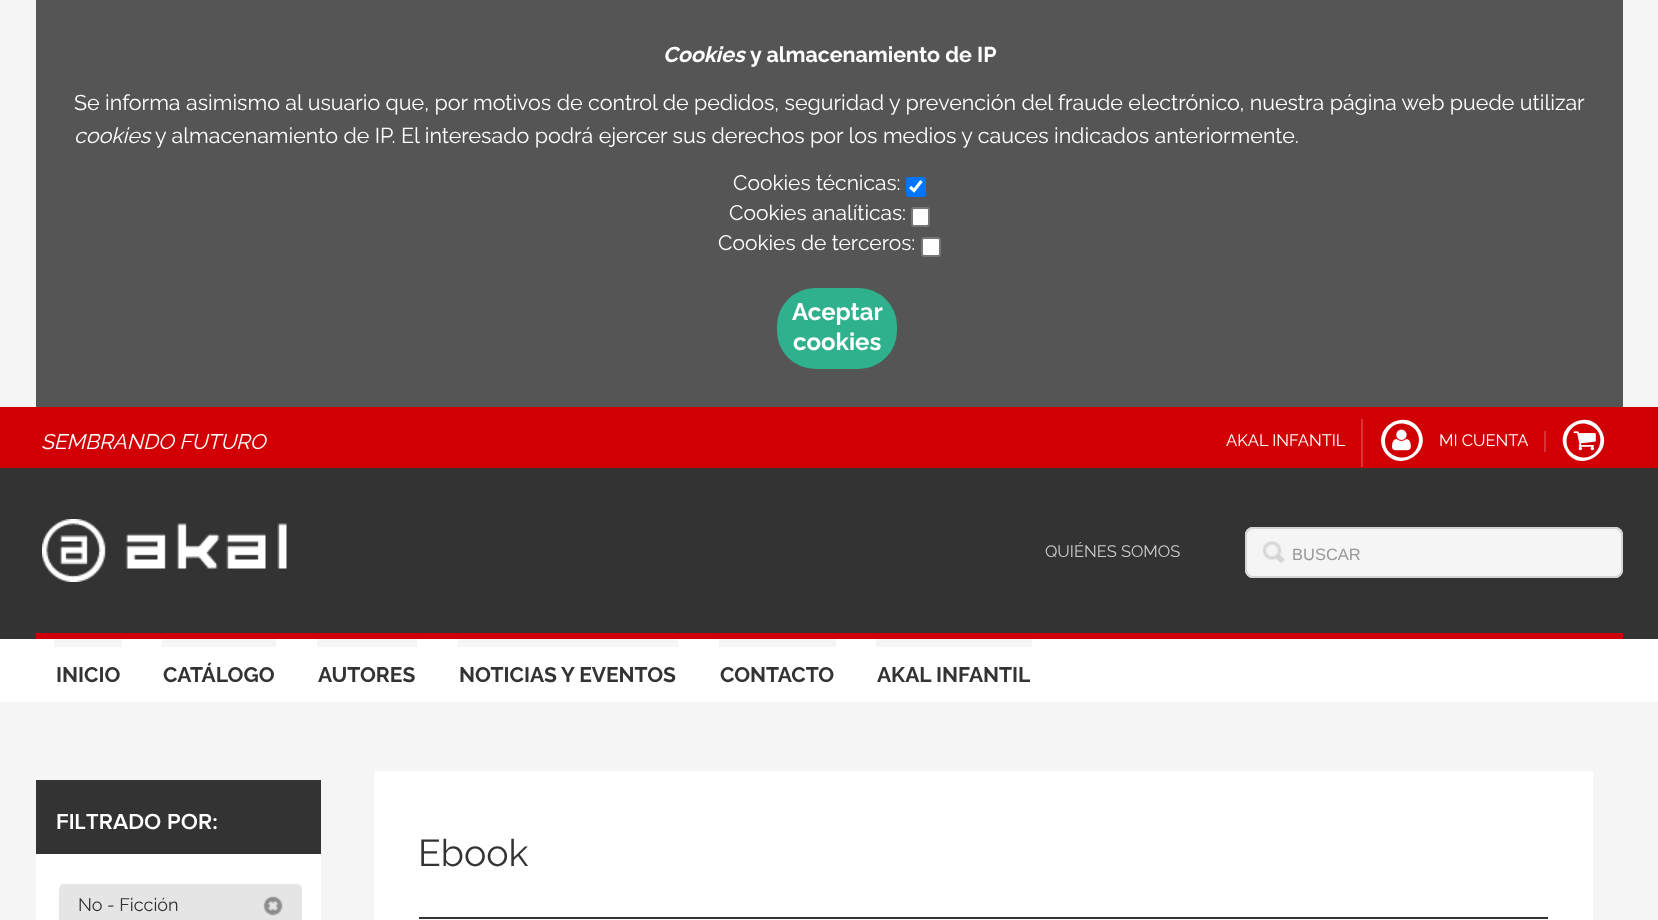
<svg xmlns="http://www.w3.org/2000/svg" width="1658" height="920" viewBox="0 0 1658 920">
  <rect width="100%" height="100%" fill="#f5f5f5"/>
  <rect x="36" y="0" width="1587" height="407" fill="#555555"/>
  <text x="663" y="62" font-family="Raleway" font-size="21.45" font-weight="bold" font-style="italic" fill="#ffffff">Cookies</text>
  <text x="750" y="62" font-family="Raleway" font-size="21.45" font-weight="bold" fill="#ffffff">y almacenamiento de IP</text>
  <text x="74" y="110" font-family="Raleway" font-size="21.45" fill="#ffffff">Se informa asimismo al usuario que, por motivos de control de pedidos, seguridad y prevención del fraude electrónico, nuestra página web puede utilizar</text>
  <text x="74" y="143" font-family="Raleway" font-size="21.45" font-style="italic" fill="#ffffff">cookies</text>
  <text x="155" y="143" font-family="Raleway" font-size="21.45" fill="#ffffff">y almacenamiento de IP. El interesado podrá ejercer sus derechos por los medios y cauces indicados anteriormente.</text>
  <text x="733" y="190" font-family="Raleway" font-size="21" fill="#ffffff">Cookies técnicas:</text>
  <rect x="906" y="177" width="20" height="20" rx="3" fill="#0075ff"/>
  <path d="M910 187L914 190.5L921.5 181" fill="none" stroke="#ffffff" stroke-width="3.1"/>
  <text x="729" y="220" font-family="Raleway" font-size="21" fill="#ffffff">Cookies analíticas:</text>
  <rect x="912" y="208" width="17" height="18" rx="2" fill="#ffffff" stroke="#767676" stroke-width="2"/>
  <text x="718" y="250" font-family="Raleway" font-size="21" fill="#ffffff">Cookies de terceros:</text>
  <rect x="922" y="238" width="18" height="18" rx="2" fill="#ffffff" stroke="#767676" stroke-width="2"/>
  <rect x="777" y="288" width="120" height="81" rx="38" fill="#2fb18d"/>
  <text x="792" y="320" font-family="Raleway" font-size="24" font-weight="bold" fill="#ffffff">Aceptar</text>
  <text x="793" y="350" font-family="Raleway" font-size="24" font-weight="bold" fill="#ffffff">cookies</text>
  <rect x="0" y="468" width="1658" height="171" fill="#333333"/>
  <rect x="0" y="407" width="1658" height="61" fill="#d10005"/>
  <text x="41" y="449" font-family="Raleway" font-size="21" font-style="italic" fill="#ffffff">SEMBRANDO FUTURO</text>
  <text x="1226" y="446" font-family="Raleway" font-size="16.5" fill="#ffffff">AKAL INFANTIL</text>
  <rect x="1361" y="419" width="2" height="48" fill="#da3337"/>
  <image x="1392" y="429" width="19" height="22" href="img1.png"/>
  <path d="M1409 425C1388 416 1375 447 1395 456C1416 465 1429 434 1409 425ZM1420 430C1433 453 1398 474 1384 451C1371 427 1406 407 1420 430Z" fill="#ffffff"/>
  <text x="1439" y="446" font-family="Raleway" font-size="16.5" fill="#ffffff">MI CUENTA</text>
  <rect x="1544" y="431" width="2" height="21" fill="#da3337"/>
  <image x="1573" y="431" width="23" height="20" href="img2.png"/>
  <path d="M1590 425C1570 416 1556 447 1577 456C1597 465 1611 434 1590 425ZM1601 430C1615 453 1579 474 1566 451C1552 427 1588 407 1601 430Z" fill="#ffffff"/>
  <rect x="36" y="633" width="1587" height="6" fill="#ce0005"/>
  <image x="42" y="519" width="245" height="63" href="img3.png"/>
  <text x="1045" y="557" font-family="Raleway" font-size="16.5" fill="#cccccc">QUIÉNES SOMOS</text>
  <rect x="1245" y="527" width="378" height="51" rx="8" fill="#f5f5f5"/>
  <image x="1262" y="541" width="23" height="22" href="img4.png"/>
  <rect x="1246" y="528" width="376" height="49" rx="7" fill="none" stroke="#d5d5d5" stroke-width="2"/>
  <text x="1292" y="560" font-family="Liberation Sans" font-size="16.5" fill="#999999">BUSCAR</text>
  <rect x="0" y="639" width="1658" height="63" fill="#ffffff"/>
  <rect x="54" y="639" width="68" height="8" fill="#f5f5f5"/>
  <text x="56" y="682" font-family="Raleway" font-size="21" font-weight="bold" fill="#333333">INICIO</text>
  <rect x="162" y="639" width="114" height="8" fill="#f5f5f5"/>
  <text x="163" y="682" font-family="Raleway" font-size="21" font-weight="bold" fill="#333333">CATÁLOGO</text>
  <rect x="317" y="639" width="100" height="8" fill="#f5f5f5"/>
  <text x="318" y="682" font-family="Raleway" font-size="21" font-weight="bold" fill="#333333">AUTORES</text>
  <rect x="458" y="639" width="220" height="8" fill="#f5f5f5"/>
  <text x="459" y="682" font-family="Raleway" font-size="21" font-weight="bold" fill="#333333">NOTICIAS Y EVENTOS</text>
  <rect x="719" y="639" width="117" height="8" fill="#f5f5f5"/>
  <text x="720" y="682" font-family="Raleway" font-size="21" font-weight="bold" fill="#333333">CONTACTO</text>
  <rect x="876" y="639" width="156" height="8" fill="#f5f5f5"/>
  <text x="877" y="682" font-family="Raleway" font-size="21" font-weight="bold" fill="#333333">AKAL INFANTIL</text>
  <rect x="36" y="854" width="285" height="66" fill="#ffffff"/>
  <rect x="36" y="780" width="285" height="74" fill="#333333"/>
  <text x="56" y="829" font-family="Proxima Nova" font-size="22.5" font-weight="600" fill="#ffffff">FILTRADO POR:</text>
  <rect x="59" y="884" width="243" height="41" rx="5" fill="#e5e5e5"/>
  <text x="78" y="911" font-family="Raleway" font-size="18" fill="#333333">No - Ficción</text>
  <image x="263" y="896" width="20" height="20" href="img5.png"/>
  <rect x="374" y="771" width="1219" height="149" fill="#ffffff"/>
  <rect x="419" y="917" width="1129" height="2" fill="#333333"/>
  <text x="418" y="866" font-family="Raleway" font-size="37.5" fill="#333333">Ebook</text>
</svg>
